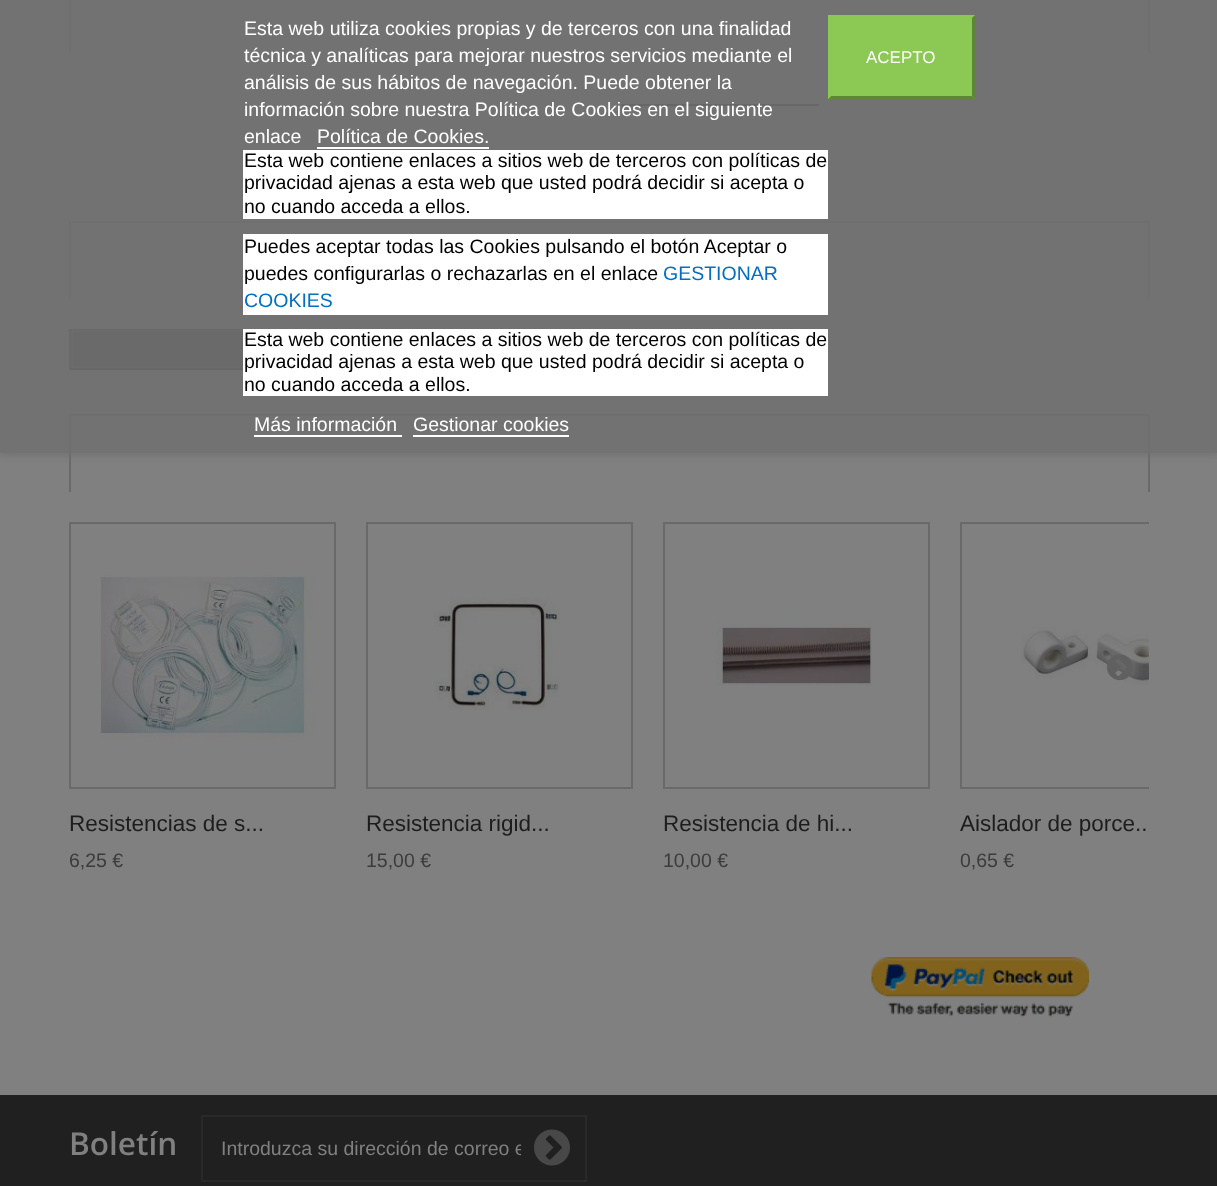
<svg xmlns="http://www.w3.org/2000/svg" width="1217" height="1186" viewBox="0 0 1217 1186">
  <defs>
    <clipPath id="clip1"><rect x="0" y="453" width="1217" height="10"/></clipPath>
    <filter id="blur1" x="-50%" y="-200%" width="200%" height="500%"><feGaussianBlur stdDeviation="4"/></filter>
    <clipPath id="clip2"><rect x="221" y="1137" width="300" height="23"/></clipPath>
    <clipPath id="clip3"><rect x="69" y="522" width="1080" height="360"/></clipPath>
  </defs>
  <rect width="100%" height="100%" fill="#808080"/>
  <rect x="0" y="1095" width="1217" height="91" fill="#202020"/>
  <rect x="1148" y="0" width="2" height="53" fill="#6b6a6a"/>
  <rect x="69" y="0" width="2" height="53" fill="#6b6a6a"/>
  <rect x="621" y="104" width="198" height="2" fill="#1a1a1a"/>
  <rect x="69" y="221" width="1080" height="2" fill="#6b6a6a"/>
  <rect x="1148" y="221" width="2" height="78" fill="#6b6a6a"/>
  <rect x="69" y="221" width="2" height="78" fill="#6b6a6a"/>
  <rect x="73" y="332" width="170" height="34" fill="#383838"/>
  <rect x="69" y="329" width="174" height="1" fill="#333333"/>
  <rect x="69" y="368" width="174" height="2" fill="#151515"/>
  <rect x="69" y="329" width="2" height="40" fill="#303030"/>
  <rect x="72" y="331" width="385" height="36" fill="none" stroke="#464545" stroke-width="2"/>
  <rect x="69" y="414" width="1080" height="2" fill="#6b6a6a"/>
  <rect x="1148" y="414" width="2" height="78" fill="#6b6a6a"/>
  <rect x="69" y="414" width="2" height="78" fill="#6b6a6a"/>
  <g clip-path="url(#clip1)">
    <rect x="0" y="2" width="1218" height="453" fill="#707070" filter="url(#blur1)"/>
  </g>
  <rect x="0" y="0" width="1217" height="453" fill="#707070" fill-opacity="0.9"/>
  <text x="244" y="35" font-family="Liberation Sans" font-size="19.5" fill="#ffffff">Esta web utiliza cookies propias y de terceros con una finalidad</text>
  <text x="244" y="62" font-family="Liberation Sans" font-size="19.5" fill="#ffffff">técnica y analíticas para mejorar nuestros servicios mediante el</text>
  <text x="244" y="89" font-family="Liberation Sans" font-size="19.5" fill="#ffffff">análisis de sus hábitos de navegación. Puede obtener la</text>
  <text x="244" y="116" font-family="Liberation Sans" font-size="19.5" fill="#ffffff">información sobre nuestra Política de Cookies en el siguiente</text>
  <text x="244" y="143" font-family="Liberation Sans" font-size="19.5" fill="#ffffff">enlace</text>
  <text x="317" y="143" font-family="Liberation Sans" font-size="19.5" fill="#ffffff">Política de Cookies.</text>
  <rect x="317" y="147" width="172" height="2" fill="#ffffff"/>
  <rect x="243" y="150" width="585" height="69" fill="#ffffff"/>
  <text x="244" y="167" font-family="Liberation Sans" font-size="19.5" fill="#000000">Esta web contiene enlaces a sitios web de terceros con políticas de</text>
  <text x="244" y="189" font-family="Liberation Sans" font-size="19.5" fill="#000000">privacidad ajenas a esta web que usted podrá decidir si acepta o</text>
  <text x="244" y="213" font-family="Liberation Sans" font-size="19.5" fill="#000000">no cuando acceda a ellos.</text>
  <rect x="243" y="234" width="585" height="81" fill="#ffffff"/>
  <text x="244" y="253" font-family="Liberation Sans" font-size="19.5" fill="#000000">Puedes aceptar todas las Cookies pulsando el botón Aceptar o</text>
  <text x="244" y="280" font-family="Liberation Sans" font-size="19.5" fill="#000000">puedes configurarlas o rechazarlas en el enlace</text>
  <text x="663" y="280" font-family="Liberation Sans" font-size="19.5" fill="#0070c0">GESTIONAR</text>
  <text x="244" y="307" font-family="Liberation Sans" font-size="19.5" fill="#0070c0">COOKIES</text>
  <rect x="243" y="329" width="585" height="67" fill="#ffffff"/>
  <text x="244" y="346" font-family="Liberation Sans" font-size="19.5" fill="#000000">Esta web contiene enlaces a sitios web de terceros con políticas de</text>
  <text x="244" y="368" font-family="Liberation Sans" font-size="19.5" fill="#000000">privacidad ajenas a esta web que usted podrá decidir si acepta o</text>
  <text x="244" y="391" font-family="Liberation Sans" font-size="19.5" fill="#000000">no cuando acceda a ellos.</text>
  <text x="254" y="431" font-family="Liberation Sans" font-size="19.5" fill="#ffffff">Más información</text>
  <rect x="254" y="435" width="148" height="2" fill="#ffffff"/>
  <text x="413" y="431" font-family="Liberation Sans" font-size="19.5" fill="#ffffff">Gestionar cookies</text>
  <rect x="413" y="435" width="156" height="2" fill="#ffffff"/>
  <rect x="828" y="15" width="147" height="84" fill="#8bc954"/>
  <path d="M975 15V99L972 96V18Z" fill="#5d8638"/>
  <path d="M975 99H828L831 96H972Z" fill="#5d8638"/>
  <path d="M828 99V15L831 18V96Z" fill="#8bc954"/>
  <text x="866" y="63" font-family="Liberation Sans" font-size="17" fill="#ffffff">ACEPTO</text>
  <text x="69" y="1155" font-family="Open Sans" font-size="31.5" font-weight="600" fill="#808080">Boletín</text>
  <rect x="202" y="1116" width="384" height="65" fill="none" stroke="#292929" stroke-width="2"/>
  <g clip-path="url(#clip2)">
    <text x="221" y="1155" font-family="Liberation Sans" font-size="19.5" fill="#808080">Introduzca su dirección de correo e</text>
  </g>
  <image x="534" y="1129" width="36" height="37" href="img1.png"/>
  <g clip-path="url(#clip3)">
    <rect x="961" y="523" width="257" height="265" fill="none" stroke="#6b6a6a" stroke-width="2"/>
  </g>
  <image x="1021" y="627" width="128" height="58" href="img6.png"/>
  <image x="1107" y="654" width="26" height="27" href="img2.png"/>
  <rect x="70" y="523" width="265" height="265" fill="none" stroke="#6b6a6a" stroke-width="2"/>
  <image x="100" y="575" width="214" height="163" href="img3.png"/>
  <text x="69" y="831" font-family="Liberation Sans" font-size="22.5" fill="#1d1d1d">Resistencias de s...</text>
  <text x="69" y="867" font-family="Liberation Sans" font-size="19.5" fill="#3c3c3c">6,25 €</text>
  <rect x="367" y="523" width="265" height="265" fill="none" stroke="#6b6a6a" stroke-width="2"/>
  <image x="434" y="598" width="126" height="112" href="img4.png"/>
  <text x="366" y="831" font-family="Liberation Sans" font-size="22.5" fill="#1d1d1d">Resistencia rigid...</text>
  <text x="366" y="867" font-family="Liberation Sans" font-size="19.5" fill="#3c3c3c">15,00 €</text>
  <rect x="664" y="523" width="265" height="265" fill="none" stroke="#6b6a6a" stroke-width="2"/>
  <image x="716" y="620" width="156" height="66" href="img5.png"/>
  <text x="663" y="831" font-family="Liberation Sans" font-size="22.5" fill="#1d1d1d">Resistencia de hi...</text>
  <text x="663" y="867" font-family="Liberation Sans" font-size="19.5" fill="#3c3c3c">10,00 €</text>
  <text x="960" y="831" font-family="Liberation Sans" font-size="22.5" fill="#1d1d1d">Aislador de porce..</text>
  <text x="960" y="867" font-family="Liberation Sans" font-size="19.5" fill="#3c3c3c">0,65 €</text>
  <image x="871" y="957" width="218" height="61" href="img7.png"/>
</svg>
